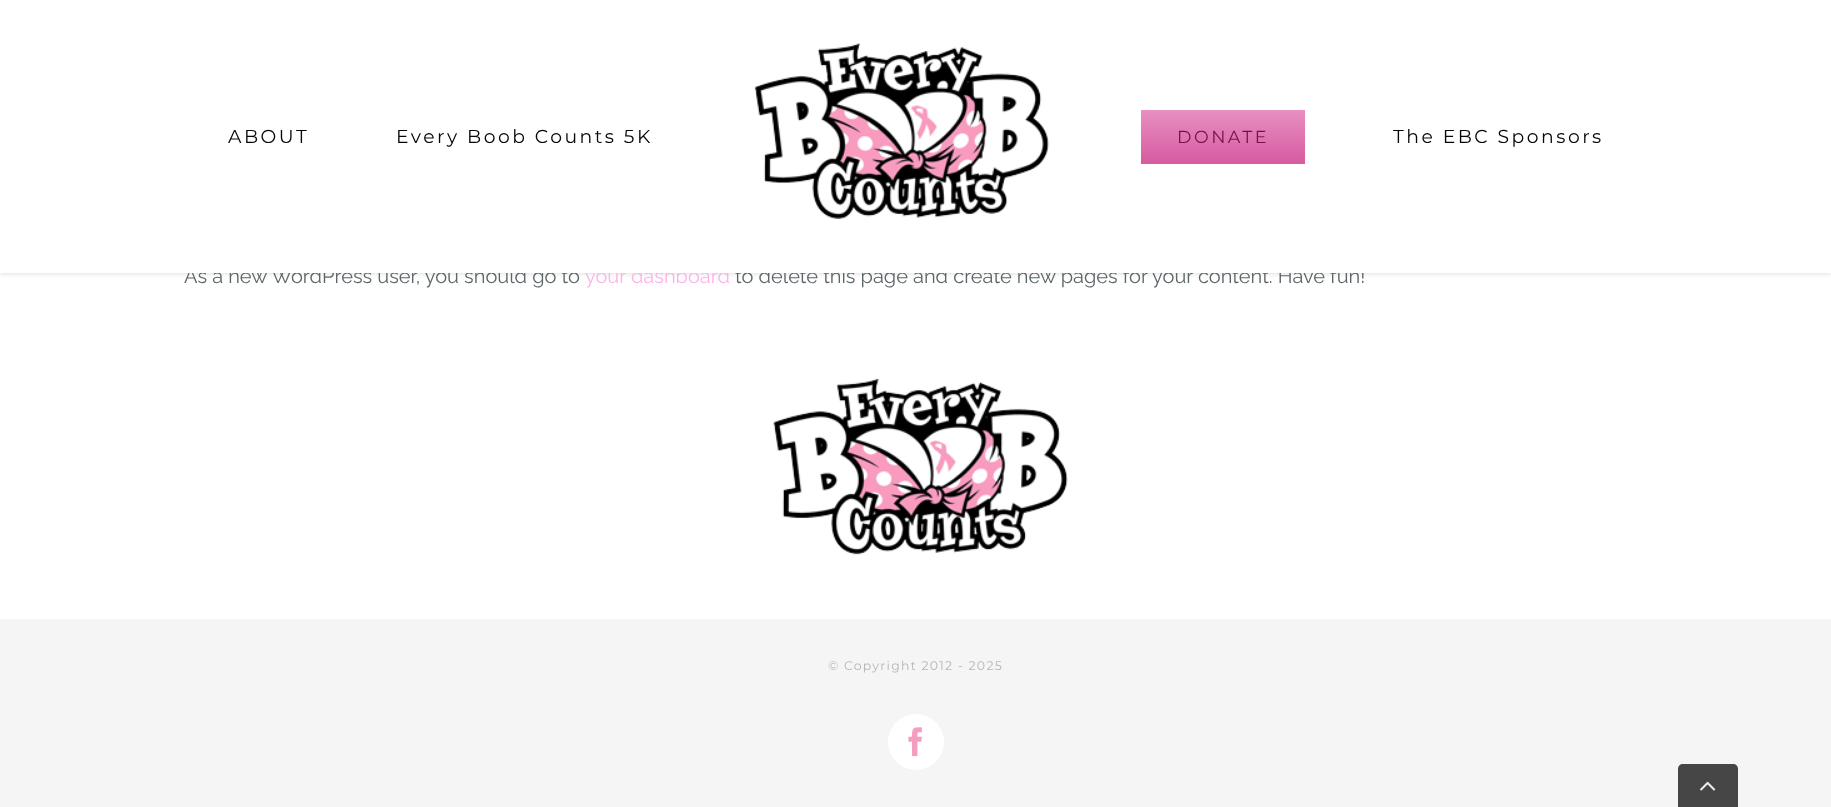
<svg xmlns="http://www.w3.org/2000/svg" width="1831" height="807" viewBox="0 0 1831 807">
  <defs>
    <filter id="blur1" x="-50%" y="-200%" width="200%" height="500%"><feGaussianBlur stdDeviation="2"/></filter>
    <linearGradient id="g1" gradientUnits="userSpaceOnUse" x1="1223" y1="164" x2="1223" y2="110"><stop offset="0" stop-color="#d65aa0"/><stop offset="1" stop-color="#e890c2"/></linearGradient>
  </defs>
  <rect width="100%" height="100%" fill="#ffffff"/>
  <rect x="0" y="1" width="1831" height="273" fill="#000000" fill-opacity="0.12" filter="url(#blur1)"/>
  <text x="184" y="283" font-family="Raleway" font-size="20" font-weight="100" fill="#5c6668">As a new WordPress user, you should go to</text>
  <text x="585" y="283" font-family="Raleway" font-size="20" font-weight="100" fill="#feb2ec">your dashboard</text>
  <text x="735" y="283" font-family="Raleway" font-size="20" font-weight="100" fill="#5c6668">to delete this page and create new pages for your content. Have fun!</text>
  <rect x="0" y="0" width="1831" height="273" fill="#ffffff"/>
  <text x="228" y="143" font-family="Montserrat" font-size="18.75" font-weight="100" letter-spacing="2.5" fill="#070707">ABOUT</text>
  <text x="396" y="143" font-family="Montserrat" font-size="18.75" font-weight="100" letter-spacing="2.5" fill="#070707">Every Boob Counts 5K</text>
  <image x="754" y="43" width="295" height="176" href="img1.png"/>
  <rect x="1141" y="110" width="164" height="54" fill="url(#g1)"/>
  <text x="1177" y="143" font-family="Montserrat" font-size="17.5" font-weight="100" letter-spacing="2.5" fill="#78104b">DONATE</text>
  <text x="1393" y="143" font-family="Montserrat" font-size="18.75" font-weight="100" letter-spacing="2.5" fill="#070707">The EBC Sponsors</text>
  <image x="773" y="378" width="295" height="177" href="img2.png"/>
  <rect x="0" y="619" width="1831" height="188" fill="#f5f5f5"/>
  <text x="828" y="670" font-family="Montserrat" font-size="12.5" font-weight="100" letter-spacing="1.25" fill="#b2b7b8">© Copyright 2012 - 2025</text>
  <circle cx="916" cy="742" r="28" fill="#ffffff"/>
  <image x="908" y="727" width="14" height="30" href="img3.png"/>
  <path d="M1683 764H1733C1736 764 1738 766 1738 769V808H1678V769C1678 766 1680 764 1683 764Z" fill="#464646"/>
  <image x="1700" y="781" width="16" height="10" href="img4.png"/>
</svg>
